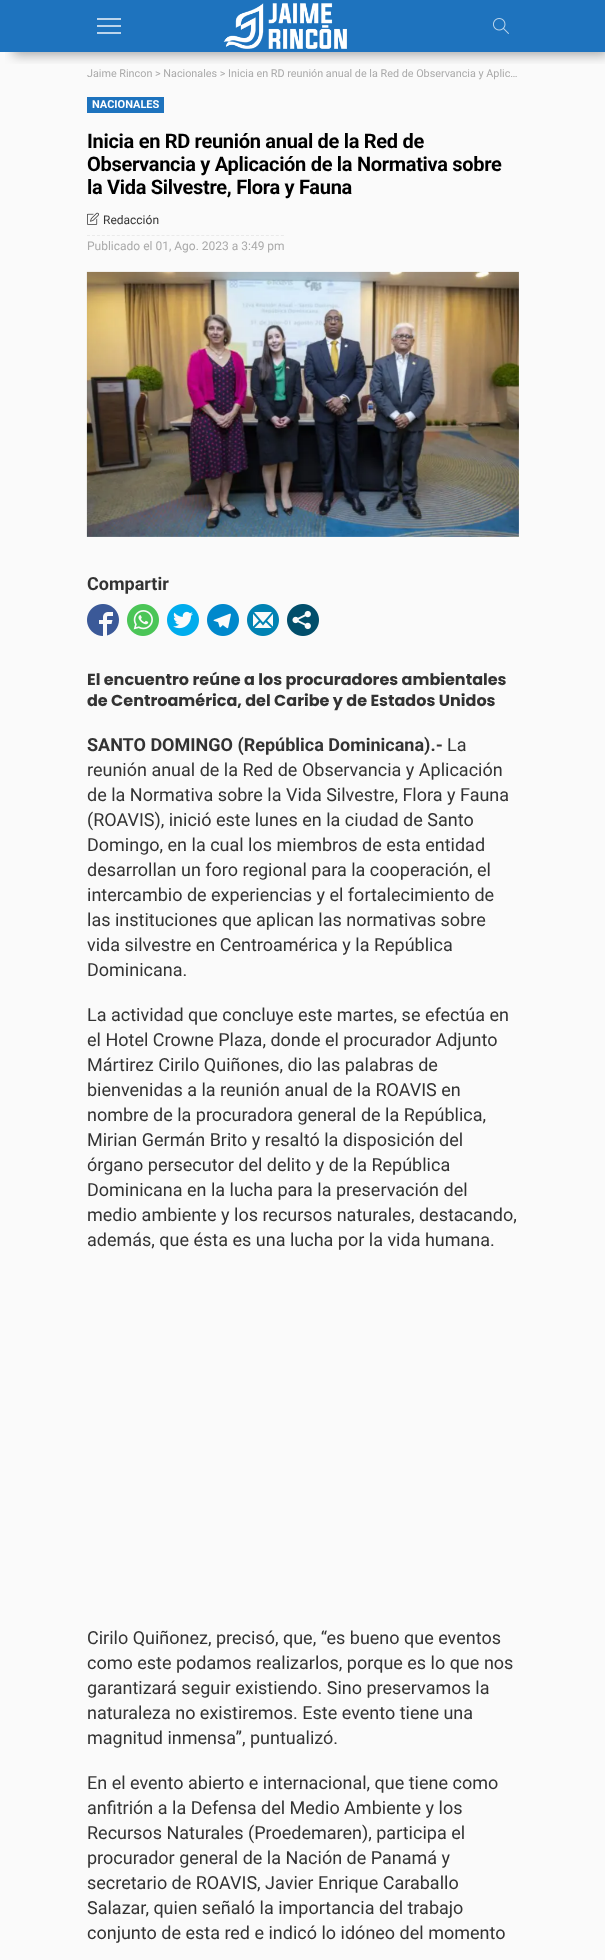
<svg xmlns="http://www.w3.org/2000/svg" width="605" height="1960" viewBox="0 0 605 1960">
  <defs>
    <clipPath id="clip1"><rect x="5" y="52" width="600" height="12"/></clipPath>
    <filter id="blur1" x="-50%" y="-200%" width="200%" height="500%"><feGaussianBlur stdDeviation="6"/></filter>
  </defs>
  <rect width="100%" height="100%" fill="#fafafa"/>
  <rect x="0" y="0" width="605" height="52" fill="#1e73be"/>
  <g clip-path="url(#clip1)">
    <rect x="13" y="13" width="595" height="42" fill="#000000" fill-opacity="0.33" filter="url(#blur1)"/>
  </g>
  <rect x="97" y="25" width="24" height="2" fill="#bcd5ec"/>
  <rect x="97" y="18" width="24" height="2" fill="#bcd5ec"/>
  <rect x="97" y="32" width="24" height="2" fill="#bcd5ec"/>
  <image x="223" y="3" width="124" height="46" href="img1.png"/>
  <image x="493" y="18" width="16" height="16" href="img2.png"/>
  <text x="87" y="77" font-family="Roboto" font-size="10.8" fill="#aaaaaa">Jaime Rincon &gt; Nacionales &gt; Inicia en RD reunión anual de la Red de Observancia y Aplic…</text>
  <rect x="87" y="97" width="77" height="16" fill="#1e73be"/>
  <text x="92" y="108" font-family="Roboto" font-size="11" font-weight="bold" fill="#ffffff">NACIONALES</text>
  <text x="87" y="148" font-family="Roboto" font-size="20" font-weight="bold" letter-spacing="-0.3" fill="#000000">Inicia en RD reunión anual de la Red de</text>
  <text x="87" y="171" font-family="Roboto" font-size="20" font-weight="bold" letter-spacing="-0.3" fill="#000000">Observancia y Aplicación de la Normativa sobre</text>
  <text x="87" y="194" font-family="Roboto" font-size="20" font-weight="bold" letter-spacing="-0.3" fill="#000000">la Vida Silvestre, Flora y Fauna</text>
  <image x="87" y="212" width="12" height="13" href="img3.png"/>
  <text x="103" y="224" font-family="Roboto" font-size="12" fill="#333333">Redacción</text>
  <path d="M87 235.5H284" fill="none" stroke="#eaeaea" stroke-dasharray="3 1.97"/>
  <text x="87" y="250" font-family="Roboto" font-size="12" fill="#aaaaaa">Publicado el 01, Ago. 2023 a 3:49 pm</text>
  <image x="86" y="271" width="433" height="266" href="img4.png"/>
  <text x="87" y="590" font-family="Roboto" font-size="18" font-weight="bold" fill="#333333">Compartir</text>
  <image x="87" y="604" width="32" height="32" href="img5.png"/>
  <image x="127" y="604" width="32" height="32" href="img6.png"/>
  <image x="167" y="604" width="32" height="32" href="img7.png"/>
  <image x="207" y="604" width="32" height="32" href="img8.png"/>
  <image x="247" y="604" width="32" height="32" href="img9.png"/>
  <image x="287" y="604" width="32" height="32" href="img10.png"/>
  <text x="87" y="685" font-family="Poppins" font-size="16" font-weight="bold" fill="#333333">El encuentro reúne a los procuradores ambientales</text>
  <text x="87" y="706" font-family="Poppins" font-size="16" font-weight="bold" fill="#333333">de Centroamérica, del Caribe y de Estados Unidos</text>
  <text x="87" y="751" font-family="Roboto" font-size="18" font-weight="bold" fill="#333333">SANTO DOMINGO (República Dominicana).-</text>
  <text x="447" y="751" font-family="Roboto" font-size="18" fill="#333333">La</text>
  <text x="87" y="776" font-family="Roboto" font-size="18" fill="#333333">reunión anual de la Red de Observancia y Aplicación</text>
  <text x="87" y="801" font-family="Roboto" font-size="18" fill="#333333">de la Normativa sobre la Vida Silvestre, Flora y Fauna</text>
  <text x="87" y="826" font-family="Roboto" font-size="18" fill="#333333">(ROAVIS), inició este lunes en la ciudad de Santo</text>
  <text x="87" y="851" font-family="Roboto" font-size="18" fill="#333333">Domingo, en la cual los miembros de esta entidad</text>
  <text x="87" y="876" font-family="Roboto" font-size="18" fill="#333333">desarrollan un foro regional para la cooperación, el</text>
  <text x="87" y="901" font-family="Roboto" font-size="18" fill="#333333">intercambio de experiencias y el fortalecimiento de</text>
  <text x="87" y="926" font-family="Roboto" font-size="18" fill="#333333">las instituciones que aplican las normativas sobre</text>
  <text x="87" y="951" font-family="Roboto" font-size="18" fill="#333333">vida silvestre en Centroamérica y la República</text>
  <text x="87" y="976" font-family="Roboto" font-size="18" fill="#333333">Dominicana.</text>
  <text x="87" y="1021" font-family="Roboto" font-size="18" fill="#333333">La actividad que concluye este martes, se efectúa en</text>
  <text x="87" y="1046" font-family="Roboto" font-size="18" fill="#333333">el Hotel Crowne Plaza, donde el procurador Adjunto</text>
  <text x="87" y="1071" font-family="Roboto" font-size="18" fill="#333333">Mártirez Cirilo Quiñones, dio las palabras de</text>
  <text x="87" y="1096" font-family="Roboto" font-size="18" fill="#333333">bienvenidas a la reunión anual de la ROAVIS en</text>
  <text x="87" y="1121" font-family="Roboto" font-size="18" fill="#333333">nombre de la procuradora general de la República,</text>
  <text x="87" y="1146" font-family="Roboto" font-size="18" fill="#333333">Mirian Germán Brito y resaltó la disposición del</text>
  <text x="87" y="1171" font-family="Roboto" font-size="18" fill="#333333">órgano persecutor del delito y de la República</text>
  <text x="87" y="1196" font-family="Roboto" font-size="18" fill="#333333">Dominicana en la lucha para la preservación del</text>
  <text x="87" y="1221" font-family="Roboto" font-size="18" fill="#333333">medio ambiente y los recursos naturales, destacando,</text>
  <text x="87" y="1246" font-family="Roboto" font-size="18" fill="#333333">además, que ésta es una lucha por la vida humana.</text>
  <text x="87" y="1644" font-family="Roboto" font-size="18" fill="#333333">Cirilo Quiñonez, precisó, que, “es bueno que eventos</text>
  <text x="87" y="1669" font-family="Roboto" font-size="18" fill="#333333">como este podamos realizarlos, porque es lo que nos</text>
  <text x="87" y="1694" font-family="Roboto" font-size="18" fill="#333333">garantizará seguir existiendo. Sino preservamos la</text>
  <text x="87" y="1719" font-family="Roboto" font-size="18" fill="#333333">naturaleza no existiremos. Este evento tiene una</text>
  <text x="87" y="1744" font-family="Roboto" font-size="18" fill="#333333">magnitud inmensa”, puntualizó.</text>
  <text x="87" y="1789" font-family="Roboto" font-size="18" fill="#333333">En el evento abierto e internacional, que tiene como</text>
  <text x="87" y="1814" font-family="Roboto" font-size="18" fill="#333333">anfitrión a la Defensa del Medio Ambiente y los</text>
  <text x="87" y="1839" font-family="Roboto" font-size="18" fill="#333333">Recursos Naturales (Proedemaren), participa el</text>
  <text x="87" y="1864" font-family="Roboto" font-size="18" fill="#333333">procurador general de la Nación de Panamá y</text>
  <text x="87" y="1889" font-family="Roboto" font-size="18" fill="#333333">secretario de ROAVIS, Javier Enrique Caraballo</text>
  <text x="87" y="1914" font-family="Roboto" font-size="18" fill="#333333">Salazar, quien señaló la importancia del trabajo</text>
  <text x="87" y="1939" font-family="Roboto" font-size="18" fill="#333333">conjunto de esta red e indicó lo idóneo del momento</text>
</svg>
